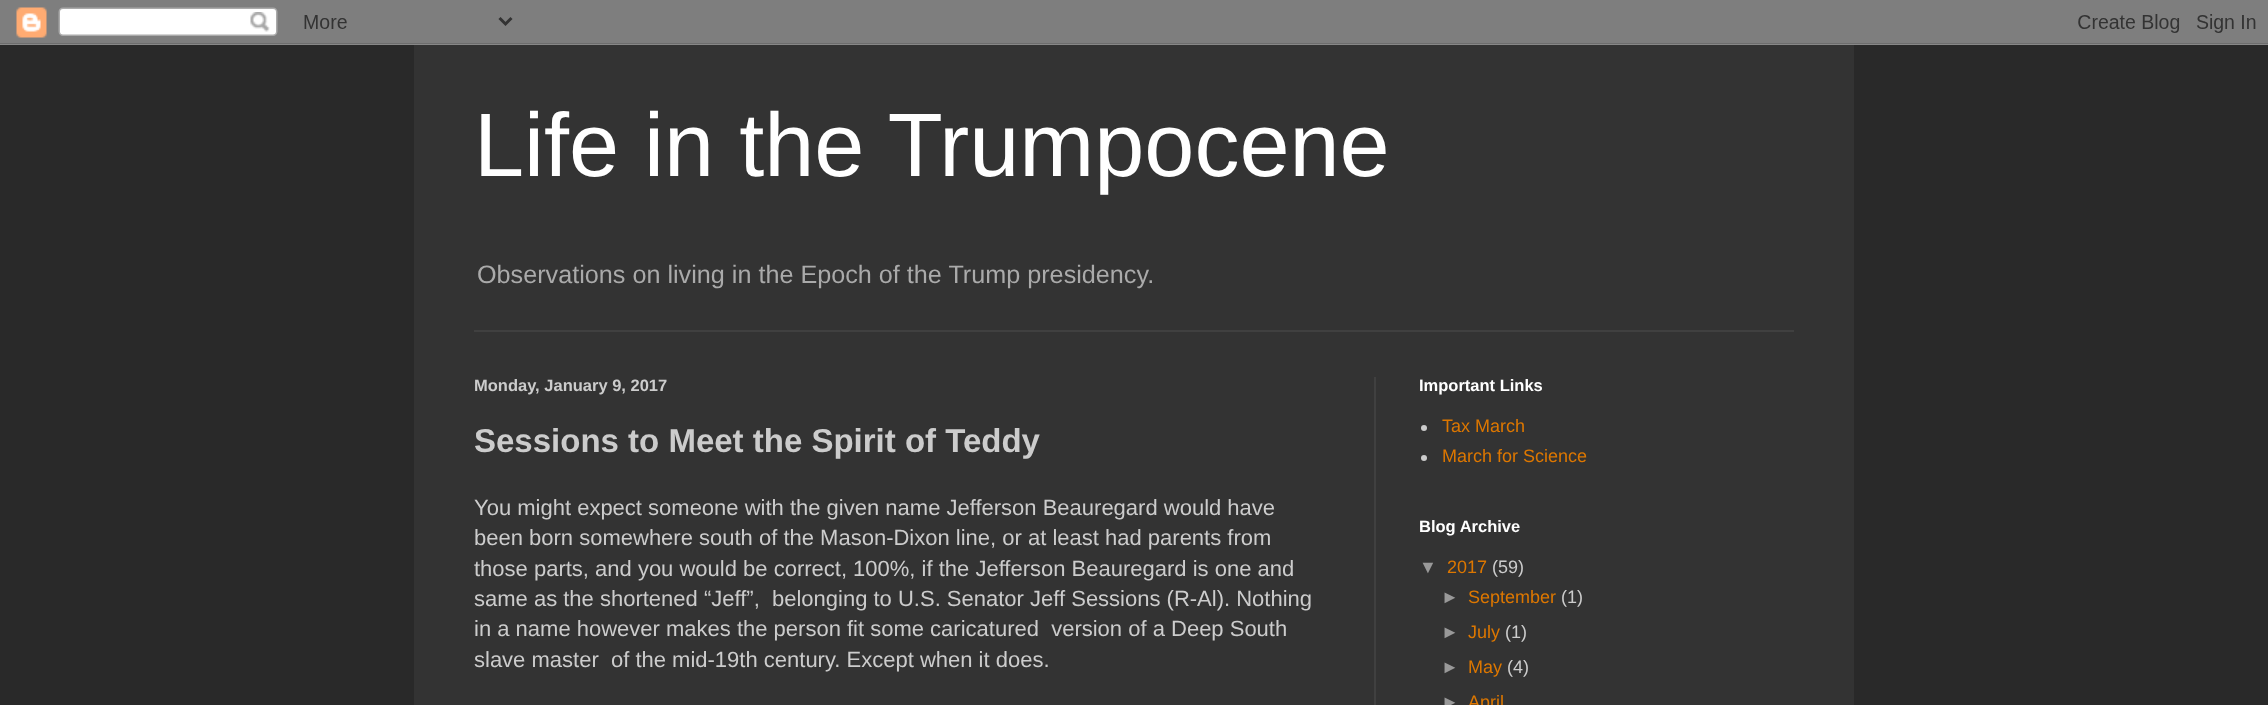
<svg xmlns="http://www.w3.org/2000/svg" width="2268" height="705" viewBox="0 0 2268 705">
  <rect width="100%" height="100%" fill="#292929"/>
  <image x="0" y="0" width="2268" height="45" href="img1.png"/>
  <rect x="414" y="45" width="1440" height="660" fill="#333333"/>
  <text x="474" y="176" font-family="Liberation Sans" font-size="90" fill="#ffffff">Life in the Trumpocene</text>
  <text x="477" y="283" font-family="Liberation Sans" font-size="25.2" fill="#aaaaaa">Observations on living in the Epoch of the Trump presidency.</text>
  <rect x="474" y="330" width="1320" height="2" fill="#404040"/>
  <rect x="1374" y="377" width="2" height="328" fill="#404040"/>
  <text x="474" y="391" font-family="Liberation Sans" font-size="16.5" font-weight="bold" fill="#cccccc">Monday, January 9, 2017</text>
  <text x="474" y="452" font-family="Liberation Sans" font-size="33" font-weight="bold" fill="#cccccc">Sessions to Meet the Spirit of Teddy</text>
  <text x="474" y="515" font-family="Liberation Sans" font-size="22" fill="#cccccc">You might expect someone with the given name Jefferson Beauregard would have</text>
  <text x="474" y="545" font-family="Liberation Sans" font-size="22" fill="#cccccc">been born somewhere south of the Mason-Dixon line, or at least had parents from</text>
  <text x="474" y="576" font-family="Liberation Sans" font-size="22" fill="#cccccc">those parts, and you would be correct, 100%, if the Jefferson Beauregard is one and</text>
  <text x="474" y="606" font-family="Liberation Sans" font-size="22" fill="#cccccc" xml:space="preserve">same as the shortened “Jeff”,  belonging to U.S. Senator Jeff Sessions (R-Al). Nothing</text>
  <text x="474" y="636" font-family="Liberation Sans" font-size="22" fill="#cccccc" xml:space="preserve">in a name however makes the person fit some caricatured  version of a Deep South</text>
  <text x="474" y="667" font-family="Liberation Sans" font-size="22" fill="#cccccc" xml:space="preserve">slave master  of the mid-19th century. Except when it does.</text>
  <text x="1419" y="391" font-family="Liberation Sans" font-size="16.5" font-weight="bold" fill="#ffffff">Important Links</text>
  <circle cx="1424" cy="428" r="3" fill="#cccccc"/>
  <text x="1442" y="432" font-family="Liberation Sans" font-size="18" fill="#dd7700">Tax March</text>
  <circle cx="1424" cy="458" r="3" fill="#cccccc"/>
  <text x="1442" y="462" font-family="Liberation Sans" font-size="18" fill="#dd7700">March for Science</text>
  <text x="1419" y="532" font-family="Liberation Sans" font-size="16.5" font-weight="bold" fill="#ffffff">Blog Archive</text>
  <text x="1419" y="573" font-family="Liberation Sans" font-size="18" fill="#999999">▼</text>
  <text x="1447" y="573" font-family="Liberation Sans" font-size="18" fill="#dd7700">2017</text>
  <text x="1492" y="573" font-family="Liberation Sans" font-size="18" fill="#cccccc">(59)</text>
  <text x="1441" y="603" font-family="Liberation Sans" font-size="18" fill="#999999">►</text>
  <text x="1468" y="603" font-family="Liberation Sans" font-size="18" fill="#dd7700">September</text>
  <text x="1561" y="603" font-family="Liberation Sans" font-size="18" fill="#cccccc">(1)</text>
  <text x="1441" y="638" font-family="Liberation Sans" font-size="18" fill="#999999">►</text>
  <text x="1468" y="638" font-family="Liberation Sans" font-size="18" fill="#dd7700">July</text>
  <text x="1505" y="638" font-family="Liberation Sans" font-size="18" fill="#cccccc">(1)</text>
  <text x="1441" y="673" font-family="Liberation Sans" font-size="18" fill="#999999">►</text>
  <text x="1468" y="673" font-family="Liberation Sans" font-size="18" fill="#dd7700">May</text>
  <text x="1507" y="673" font-family="Liberation Sans" font-size="18" fill="#cccccc">(4)</text>
  <text x="1441" y="708" font-family="Liberation Sans" font-size="18" fill="#999999">►</text>
  <text x="1468" y="708" font-family="Liberation Sans" font-size="18" fill="#dd7700">April</text>
</svg>
